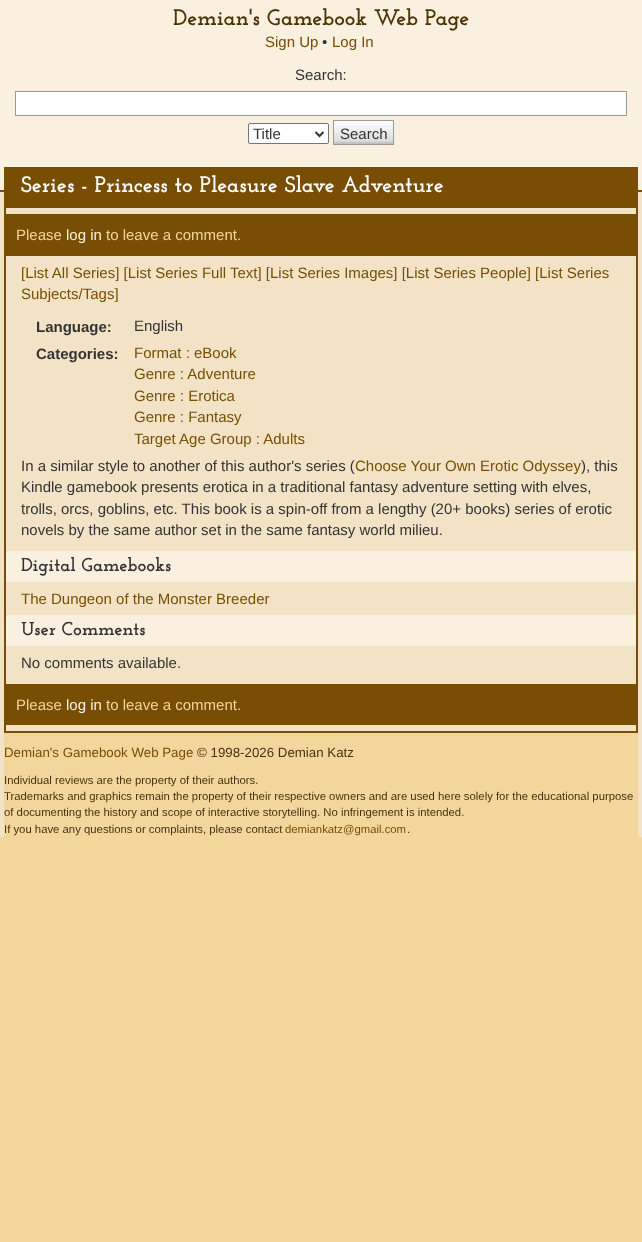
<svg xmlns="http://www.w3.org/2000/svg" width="642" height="1242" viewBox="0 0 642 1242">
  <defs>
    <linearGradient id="g1" gradientUnits="userSpaceOnUse" x1="364" y1="121" x2="364" y2="144"><stop offset="0" stop-color="#ffffff"/><stop offset="0.85" stop-color="#dddddd"/><stop offset="1" stop-color="#bbbbbb"/></linearGradient>
  </defs>
  <rect width="100%" height="100%" fill="#f3d69c"/>
  <rect x="0" y="0" width="642" height="190" fill="#f9f0e0"/>
  <rect x="0" y="190" width="642" height="2" fill="#774e03"/>
  <text x="173" y="25" font-family="Josefin Slab" font-size="22.5" font-weight="bold" fill="#4d3301">Demian's Gamebook Web Page</text>
  <text x="265" y="47" font-family="Liberation Sans" font-size="15" fill="#774e03">Sign Up</text>
  <text x="322" y="47" font-family="Liberation Sans" font-size="15" fill="#333333">•</text>
  <text x="332" y="47" font-family="Liberation Sans" font-size="15" fill="#774e03">Log In</text>
  <text x="295" y="80" font-family="Liberation Sans" font-size="15" fill="#333333">Search:</text>
  <rect x="15.5" y="91.5" width="611" height="24" fill="#ffffff" stroke="#999999"/>
  <rect x="248.5" y="123.5" width="80" height="20" rx="1.5" fill="#ffffff" stroke="#767676"/>
  <path d="M315.5 132L319.5 136L323.5 132" fill="none" stroke="#333333" stroke-width="2"/>
  <text x="253" y="139" font-family="Liberation Sans" font-size="15" fill="#333333">Title</text>
  <rect x="334" y="121" width="59" height="23" fill="url(#g1)"/>
  <rect x="333.5" y="120.5" width="60" height="24" fill="none" stroke="#999999"/>
  <text x="340" y="139" font-family="Liberation Sans" font-size="15" fill="#333333">Search</text>
  <rect x="0" y="192" width="642" height="645" fill="#f3e3c6"/>
  <rect x="4" y="167" width="634" height="41" fill="#774e03"/>
  <text x="21" y="192" font-family="Josefin Slab" font-size="22.5" font-weight="bold" fill="#ffffff">Series - Princess to Pleasure Slave Adventure</text>
  <rect x="636" y="208" width="2" height="525" fill="#774e03"/>
  <rect x="4" y="731" width="634" height="2" fill="#774e03"/>
  <rect x="4" y="208" width="2" height="525" fill="#774e03"/>
  <rect x="6" y="214" width="630" height="42" fill="#774e03"/>
  <text x="16" y="240" font-family="Liberation Sans" font-size="15" fill="#f3d69c">Please</text>
  <text x="66" y="240" font-family="Liberation Sans" font-size="15" fill="#f9f0e0">log in</text>
  <text x="106" y="240" font-family="Liberation Sans" font-size="15" fill="#f3d69c">to leave a comment.</text>
  <text x="21" y="278" font-family="Liberation Sans" font-size="15" fill="#774e03">[List All Series] [List Series Full Text] [List Series Images] [List Series People] [List Series</text>
  <text x="21" y="299" font-family="Liberation Sans" font-size="15" fill="#774e03">Subjects/Tags]</text>
  <text x="36" y="332" font-family="Liberation Sans" font-size="15" font-weight="bold" fill="#333333">Language:</text>
  <text x="134" y="331" font-family="Liberation Sans" font-size="15" fill="#333333">English</text>
  <text x="36" y="359" font-family="Liberation Sans" font-size="15" font-weight="bold" fill="#333333">Categories:</text>
  <text x="134" y="358" font-family="Liberation Sans" font-size="15" fill="#774e03">Format : eBook</text>
  <text x="134" y="379" font-family="Liberation Sans" font-size="15" fill="#774e03">Genre : Adventure</text>
  <text x="134" y="401" font-family="Liberation Sans" font-size="15" fill="#774e03">Genre : Erotica</text>
  <text x="134" y="422" font-family="Liberation Sans" font-size="15" fill="#774e03">Genre : Fantasy</text>
  <text x="134" y="444" font-family="Liberation Sans" font-size="15" fill="#774e03">Target Age Group : Adults</text>
  <text x="21" y="471" font-family="Liberation Sans" font-size="15" fill="#333333">In a similar style to another of this author's series (</text>
  <text x="355" y="471" font-family="Liberation Sans" font-size="15" fill="#774e03">Choose Your Own Erotic Odyssey</text>
  <text x="581" y="471" font-family="Liberation Sans" font-size="15" fill="#333333">), this</text>
  <text x="21" y="492" font-family="Liberation Sans" font-size="15" fill="#333333">Kindle gamebook presents erotica in a traditional fantasy adventure setting with elves,</text>
  <text x="21" y="514" font-family="Liberation Sans" font-size="15" fill="#333333">trolls, orcs, goblins, etc. This book is a spin-off from a lengthy (20+ books) series of erotic</text>
  <text x="21" y="535" font-family="Liberation Sans" font-size="15" fill="#333333">novels by the same author set in the same fantasy world milieu.</text>
  <rect x="6" y="551" width="630" height="31" fill="#f9f0e0"/>
  <text x="21" y="571" font-family="Josefin Slab" font-size="18.75" font-weight="bold" fill="#333333">Digital Gamebooks</text>
  <text x="21" y="604" font-family="Liberation Sans" font-size="15" fill="#774e03">The Dungeon of the Monster Breeder</text>
  <rect x="6" y="615" width="630" height="31" fill="#f9f0e0"/>
  <text x="21" y="635" font-family="Josefin Slab" font-size="18.75" font-weight="bold" fill="#333333">User Comments</text>
  <text x="21" y="668" font-family="Liberation Sans" font-size="15" fill="#333333">No comments available.</text>
  <rect x="6" y="684" width="630" height="41" fill="#774e03"/>
  <text x="16" y="710" font-family="Liberation Sans" font-size="15" fill="#f3d69c">Please</text>
  <text x="66" y="710" font-family="Liberation Sans" font-size="15" fill="#f9f0e0">log in</text>
  <text x="106" y="710" font-family="Liberation Sans" font-size="15" fill="#f3d69c">to leave a comment.</text>
  <rect x="4" y="733" width="634" height="104" fill="#f3d69c"/>
  <text x="4" y="757" font-family="Liberation Sans" font-size="13.3" fill="#774e03">Demian's Gamebook Web Page</text>
  <text x="197" y="757" font-family="Liberation Sans" font-size="13.3" fill="#443311">© 1998-2026 Demian Katz</text>
  <text x="4" y="784" font-family="Liberation Sans" font-size="11.33" fill="#443311">Individual reviews are the property of their authors.</text>
  <text x="4" y="800" font-family="Liberation Sans" font-size="11.33" fill="#443311">Trademarks and graphics remain the property of their respective owners and are used here solely for the educational purpose</text>
  <text x="4" y="816" font-family="Liberation Sans" font-size="11.33" fill="#443311">of documenting the history and scope of interactive storytelling. No infringement is intended.</text>
  <text x="4" y="833" font-family="Liberation Sans" font-size="11.33" fill="#443311">If you have any questions or complaints, please contact</text>
  <text x="285" y="833" font-family="Liberation Sans" font-size="11.33" fill="#774e03">demiankatz@gmail.com</text>
  <text x="407" y="833" font-family="Liberation Sans" font-size="11.33" fill="#443311">.</text>
</svg>
